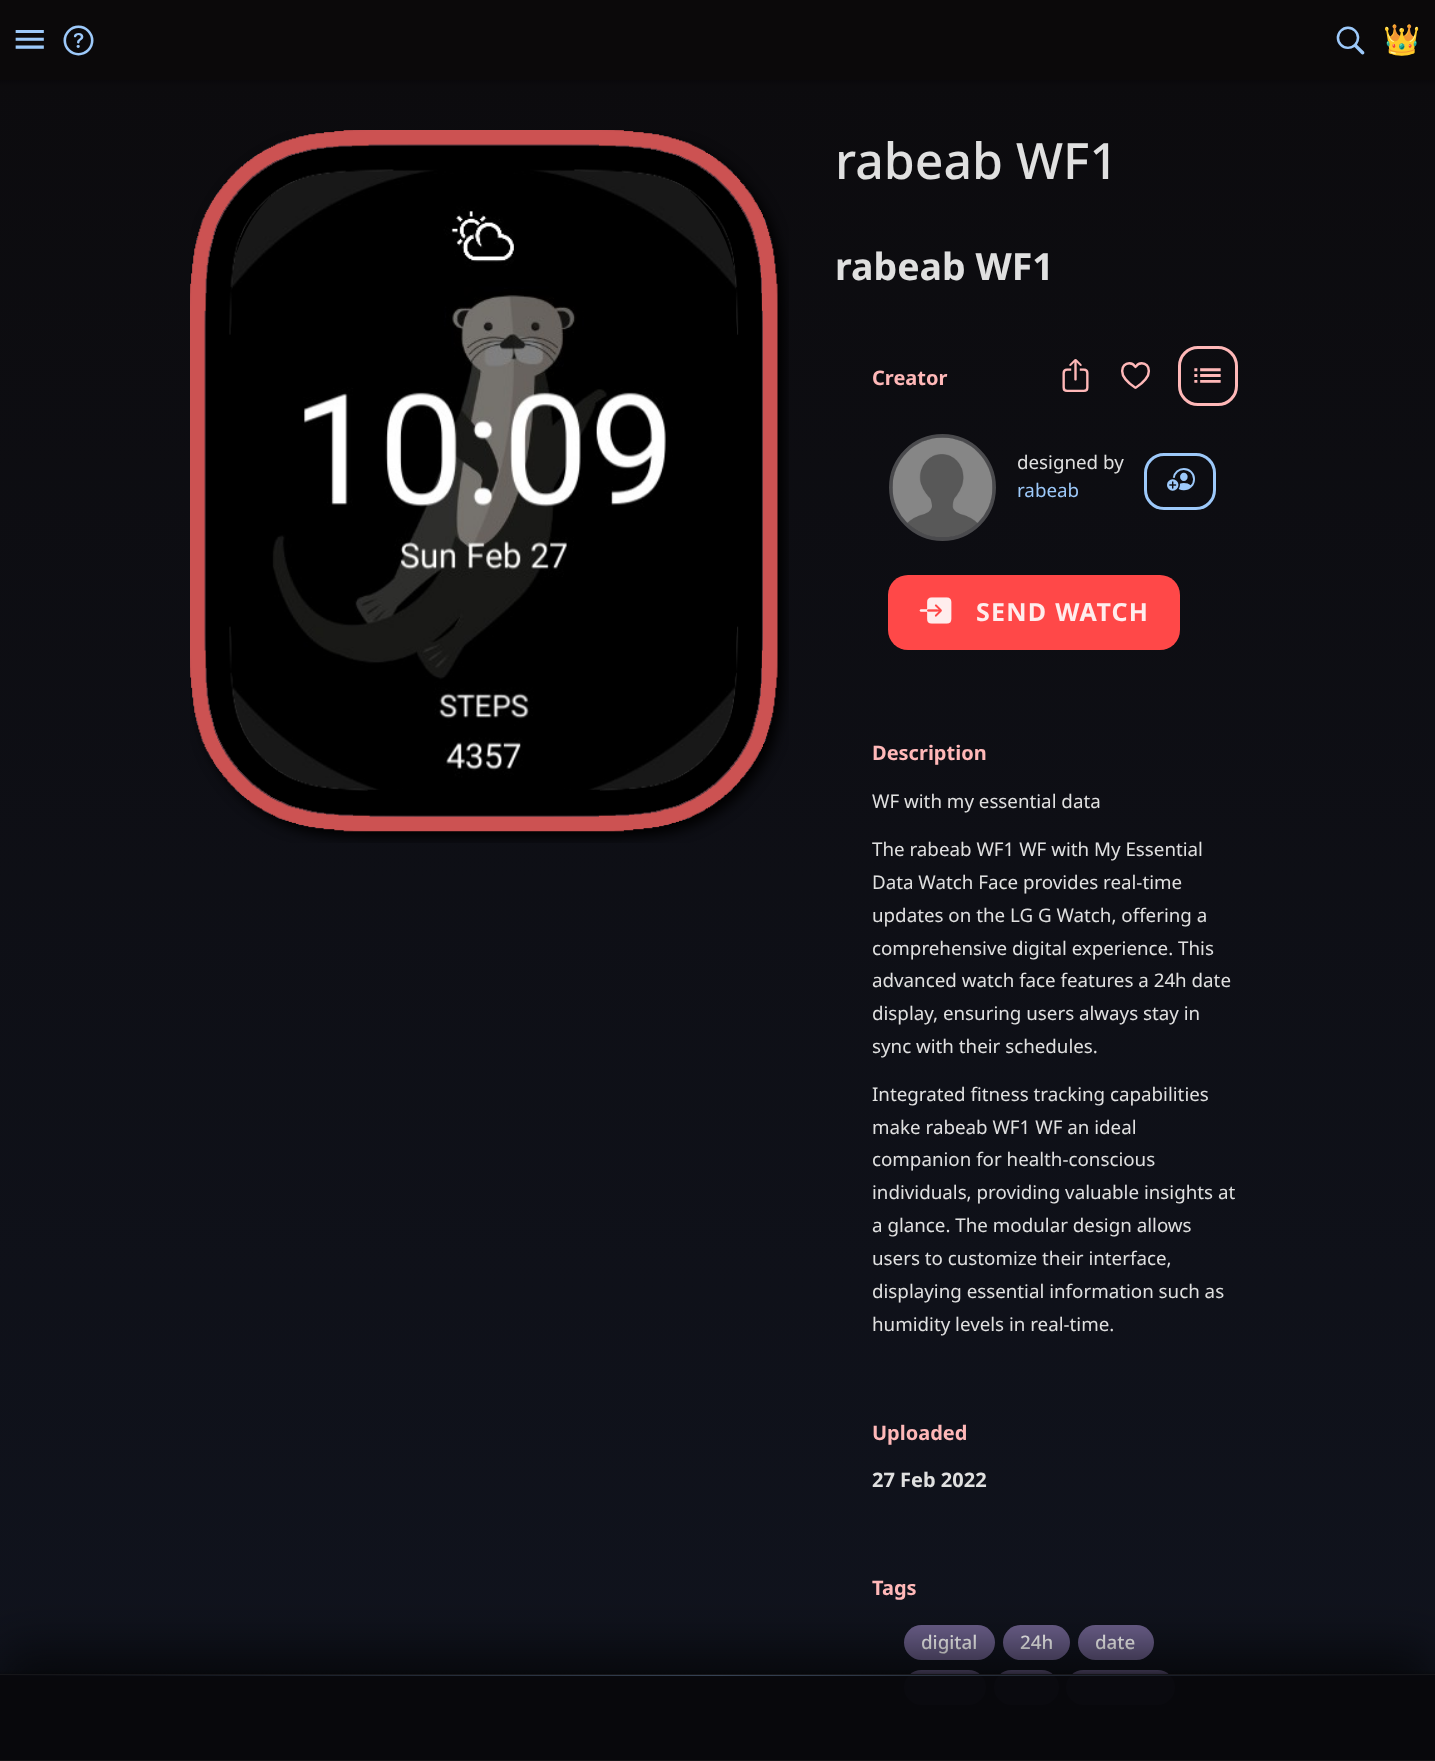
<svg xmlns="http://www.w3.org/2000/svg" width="1435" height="1761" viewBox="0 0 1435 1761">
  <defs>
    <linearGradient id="g1" gradientUnits="userSpaceOnUse" x1="718" y1="80" x2="718" y2="90"><stop offset="0" stop-color="#09080b"/><stop offset="0.4" stop-color="#0b0a0d"/><stop offset="0.5" stop-color="#0c0b0d"/><stop offset="0.9" stop-color="#0c0b0e"/><stop offset="1" stop-color="#0c0b0e"/></linearGradient>
    <linearGradient id="g2" gradientUnits="userSpaceOnUse" x1="717" y1="-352" x2="718" y2="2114"><stop offset="0" stop-color="#0b090a"/><stop offset="1" stop-color="#111521"/></linearGradient>
    <clipPath id="clip1"><rect x="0" y="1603" width="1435" height="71"/></clipPath>
    <filter id="blur1" x="-50%" y="-200%" width="200%" height="500%"><feGaussianBlur stdDeviation="25"/></filter>
    <linearGradient id="g3" gradientUnits="userSpaceOnUse" x1="718" y1="1675" x2="718" y2="1665"><stop offset="0" stop-color="#000000" stop-opacity="0.25"/><stop offset="0.4" stop-color="#000000" stop-opacity="0.08"/><stop offset="0.5" stop-color="#000000" stop-opacity="0.04"/><stop offset="0.9" stop-color="#000000" stop-opacity="0"/><stop offset="1" stop-color="#000000" stop-opacity="0"/></linearGradient>
    <linearGradient id="g4" gradientUnits="userSpaceOnUse" x1="0" y1="1676" x2="1435" y2="1676"><stop offset="0" stop-color="#08080d"/><stop offset="0.5" stop-color="#354254"/><stop offset="1" stop-color="#08080d"/></linearGradient>
  </defs>
  <rect width="100%" height="100%" fill="#ffffff"/>
  <rect x="0" y="0" width="1435" height="80" fill="#0b090a"/>
  <rect x="0" y="80" width="1435" height="10" fill="url(#g1)"/>
  <text x="11" y="58" font-family="'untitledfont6'" font-size="37.5" fill="#9dc9fa">W</text>
  <text x="61" y="58" font-family="'untitledfont6'" font-size="35" fill="#9dc9fa">k</text>
  <text x="1333" y="58" font-family="'untitledfont6'" font-size="35" fill="#9dc9fa">c</text>
  <text x="1383" y="50" font-family="Noto Color Emoji" font-size="30" fill="#9dc9fa">👑</text>
  <rect x="0" y="90" width="1435" height="1670" fill="url(#g2)"/>
  <image x="190" y="130" width="599" height="713" href="img1.png"/>
  <image x="229" y="169" width="509" height="622" href="img3.png"/>
  <image x="190" y="130" width="588" height="702" href="img2.png"/>
  <text x="835" y="179" font-family="Noto Sans" font-size="50" font-weight="500" fill="#e0e0e0">rabeab WF1</text>
  <text x="835" y="280" font-family="Noto Sans" font-size="37.5" font-weight="bold" fill="#e0e0e0">rabeab WF1</text>
  <text x="872" y="385" font-family="Noto Sans" font-size="20" font-weight="bold" fill="#ffb8b8">Creator</text>
  <text x="1058" y="393" font-family="'untitledfont6'" font-size="35" fill="#ffb8b8">i</text>
  <text x="1118" y="393" font-family="'untitledfont6'" font-size="35" fill="#ffb8b8">b</text>
  <rect x="1179.5" y="347.5" width="57" height="57" rx="18.5" fill="none" stroke="#ffb8b8" stroke-width="3"/>
  <text x="1190" y="393" font-family="'untitledfont6'" font-size="35" fill="#ffb8b8">X</text>
  <circle cx="942.5" cy="487.5" r="51.5" fill="none" stroke="#4a4a4d" stroke-width="4"/>
  <image x="892" y="437" width="101" height="100" href="img4.png"/>
  <text x="1017" y="469" font-family="Noto Sans" font-size="18.75" fill="#e0e0e0">designed by</text>
  <text x="1017" y="497" font-family="Noto Sans" font-size="18.75" fill="#9dc9fa">rabeab</text>
  <rect x="1145.5" y="454.5" width="69" height="54" rx="18.5" fill="none" stroke="#9dc9fa" stroke-width="3"/>
  <text x="1167" y="493" font-family="'untitledfont6'" font-size="28" fill="#9dc9fa">G</text>
  <rect x="888" y="575" width="292" height="75" rx="20" fill="#ff4848"/>
  <text x="918" y="628" font-family="'untitledfont6'" font-size="35" fill="#ffeded">Q</text>
  <text x="976" y="621" font-family="Noto Sans" font-size="25" font-weight="bold" letter-spacing="1.25" fill="#ffeded">SEND WATCH</text>
  <text x="872" y="760" font-family="Noto Sans" font-size="20" font-weight="bold" fill="#ffb8b8">Description</text>
  <text x="872" y="808" font-family="Noto Sans" font-size="18.75" fill="#e0e0e0">WF with my essential data</text>
  <text x="872" y="856" font-family="Noto Sans" font-size="18.75" fill="#e0e0e0">The rabeab WF1 WF with My Essential</text>
  <text x="872" y="889" font-family="Noto Sans" font-size="18.75" fill="#e0e0e0">Data Watch Face provides real-time</text>
  <text x="872" y="922" font-family="Noto Sans" font-size="18.75" fill="#e0e0e0">updates on the LG G Watch, offering a</text>
  <text x="872" y="955" font-family="Noto Sans" font-size="18.75" fill="#e0e0e0">comprehensive digital experience. This</text>
  <text x="872" y="987" font-family="Noto Sans" font-size="18.75" fill="#e0e0e0">advanced watch face features a 24h date</text>
  <text x="872" y="1020" font-family="Noto Sans" font-size="18.75" fill="#e0e0e0">display, ensuring users always stay in</text>
  <text x="872" y="1053" font-family="Noto Sans" font-size="18.75" fill="#e0e0e0">sync with their schedules.</text>
  <text x="872" y="1101" font-family="Noto Sans" font-size="18.75" fill="#e0e0e0">Integrated fitness tracking capabilities</text>
  <text x="872" y="1134" font-family="Noto Sans" font-size="18.75" fill="#e0e0e0">make rabeab WF1 WF an ideal</text>
  <text x="872" y="1166" font-family="Noto Sans" font-size="18.75" fill="#e0e0e0">companion for health-conscious</text>
  <text x="872" y="1199" font-family="Noto Sans" font-size="18.75" fill="#e0e0e0">individuals, providing valuable insights at</text>
  <text x="872" y="1232" font-family="Noto Sans" font-size="18.75" fill="#e0e0e0">a glance. The modular design allows</text>
  <text x="872" y="1265" font-family="Noto Sans" font-size="18.75" fill="#e0e0e0">users to customize their interface,</text>
  <text x="872" y="1298" font-family="Noto Sans" font-size="18.75" fill="#e0e0e0">displaying essential information such as</text>
  <text x="872" y="1331" font-family="Noto Sans" font-size="18.75" fill="#e0e0e0">humidity levels in real-time.</text>
  <text x="872" y="1440" font-family="Noto Sans" font-size="20" font-weight="bold" fill="#ffb8b8">Uploaded</text>
  <text x="872" y="1487" font-family="Noto Sans" font-size="20" font-weight="bold" fill="#e0e0e0">27 Feb 2022</text>
  <text x="872" y="1595" font-family="Noto Sans" font-size="20" font-weight="bold" fill="#ffb8b8">Tags</text>
  <rect x="904" y="1625" width="91" height="35" rx="17.5" fill="#6c608c"/>
  <text x="921" y="1649" font-family="Noto Sans" font-size="18.75" font-weight="500" fill="#ffffff">digital</text>
  <rect x="1003" y="1625" width="67" height="35" rx="17.5" fill="#6c608c"/>
  <text x="1020" y="1649" font-family="Noto Sans" font-size="18.75" font-weight="500" fill="#ffffff">24h</text>
  <rect x="1078" y="1625" width="76" height="35" rx="17.5" fill="#6c608c"/>
  <text x="1095" y="1649" font-family="Noto Sans" font-size="18.75" font-weight="500" fill="#ffffff">date</text>
  <rect x="904" y="1670" width="82" height="35" rx="17.5" fill="#6c608c"/>
  <rect x="994" y="1670" width="65" height="35" rx="17.5" fill="#6c608c"/>
  <rect x="1066" y="1670" width="109" height="35" rx="17.5" fill="#6c608c"/>
  <g clip-path="url(#clip1)">
    <rect x="0" y="1649" width="1435" height="87" fill="#000000" fill-opacity="0.6" filter="url(#blur1)"/>
  </g>
  <rect x="0" y="1676" width="1435" height="84" fill="#08080c" fill-opacity="0.98"/>
  <rect x="0" y="1760" width="1435" height="1" fill="#151518"/>
  <rect x="0" y="1674" width="1435" height="1" fill="#1c1c20"/>
  <rect x="0" y="1670" width="1435" height="5" fill="url(#g3)"/>
  <rect x="0" y="1675" width="1435" height="1" fill="url(#g4)"/>
</svg>
